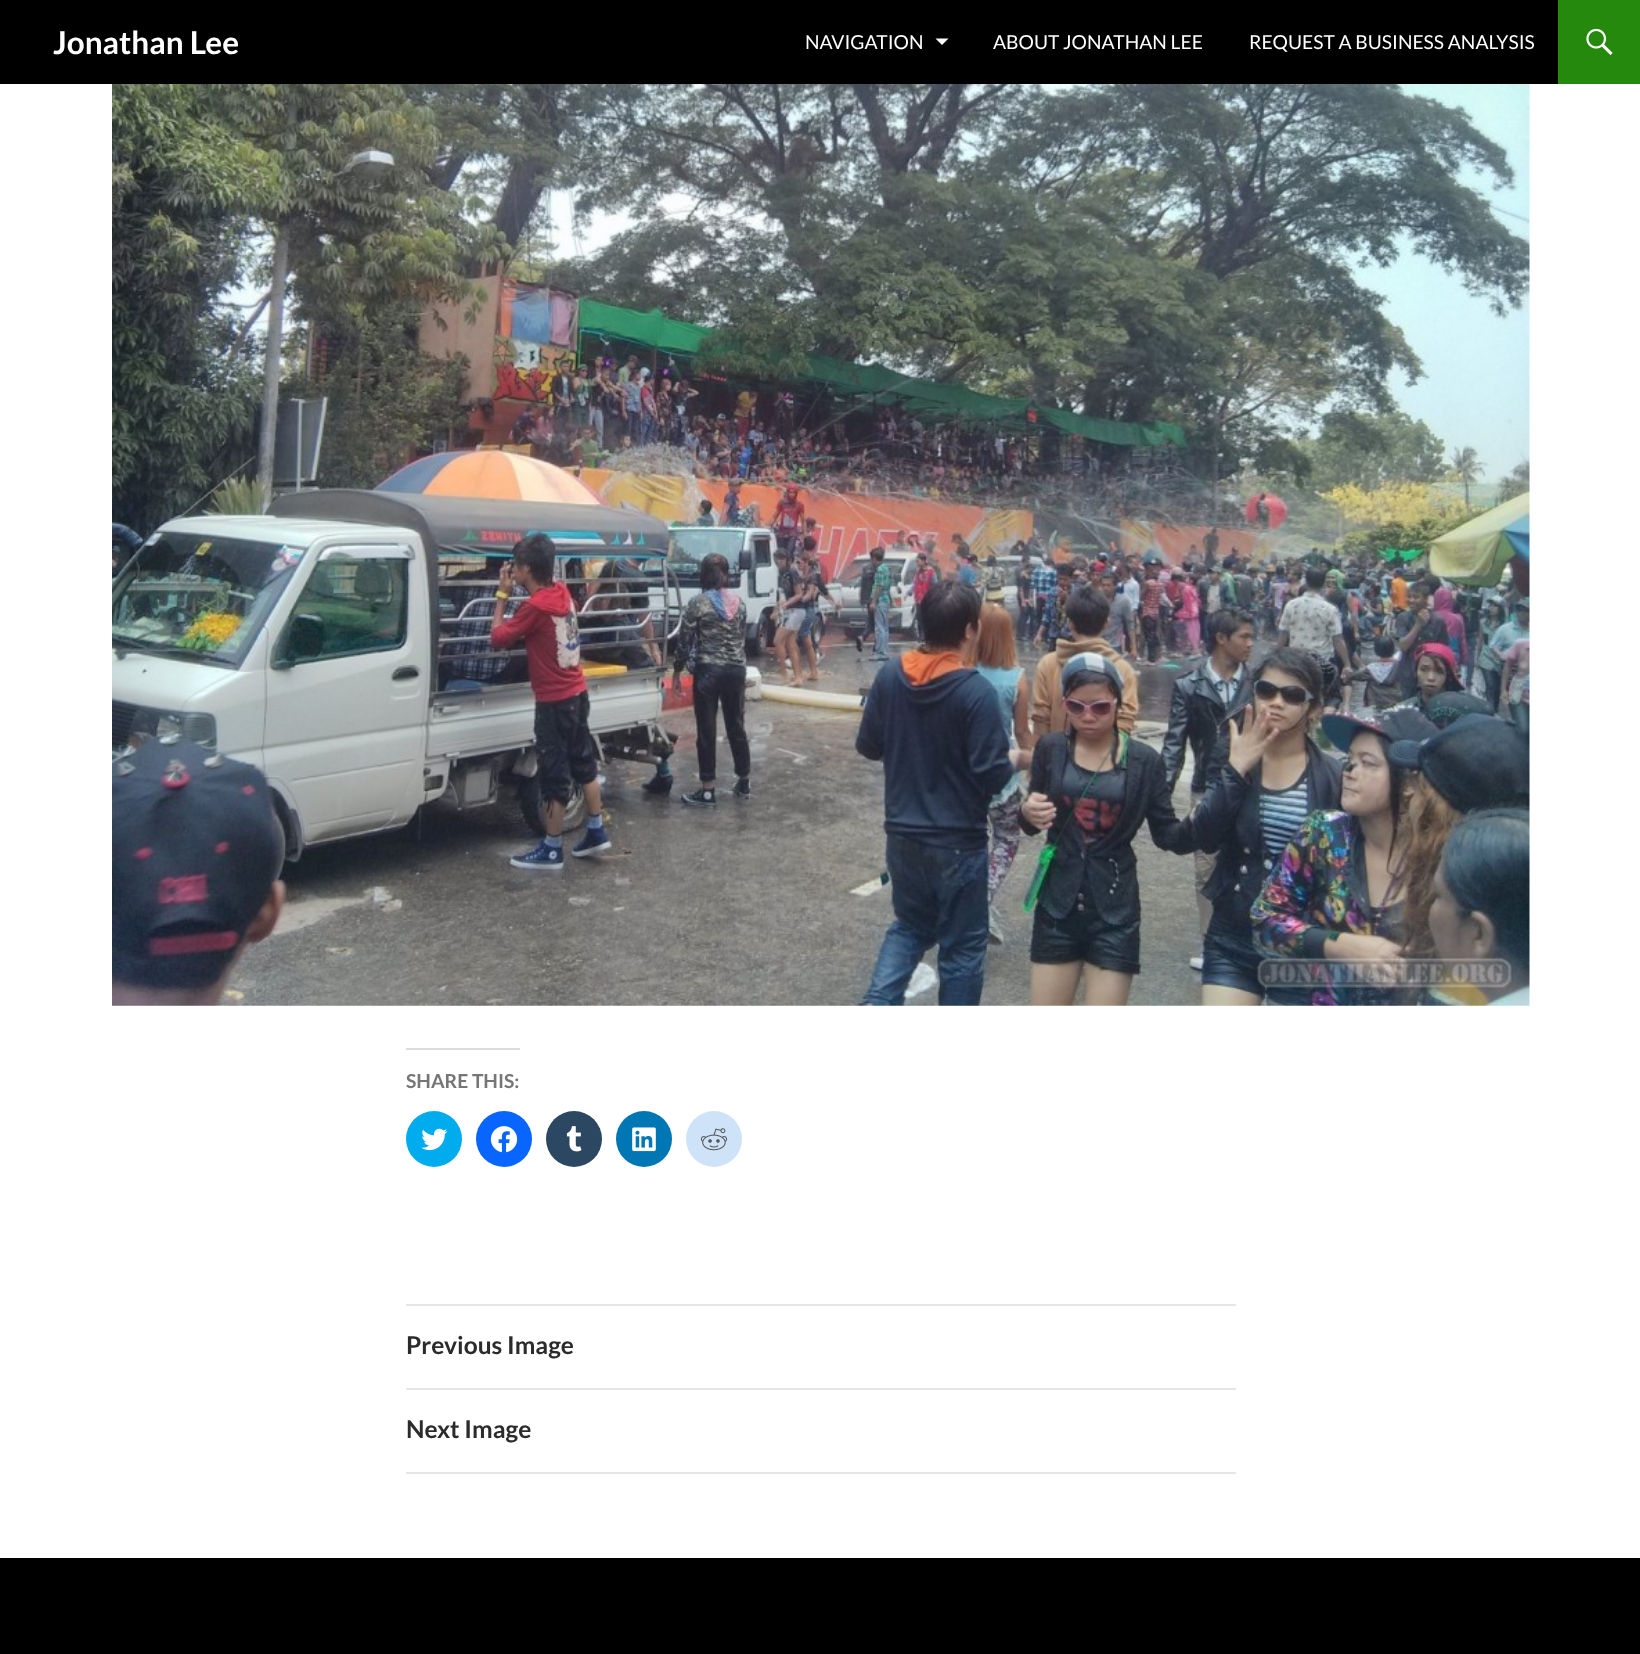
<svg xmlns="http://www.w3.org/2000/svg" width="1640" height="1654" viewBox="0 0 1640 1654">
  <rect width="100%" height="100%" fill="#ffffff"/>
  <rect x="0" y="0" width="1558" height="84" fill="#000000"/>
  <text x="53" y="54" font-family="Lato" font-size="31.5" font-weight="bold" fill="#ffffff">Jonathan Lee</text>
  <text x="805" y="49" font-family="Lato" font-size="19.25" fill="#ffffff">NAVIGATION</text>
  <path d="M935.5 38.5H948.5L942 45Z" fill="#ffffff"/>
  <text x="993" y="49" font-family="Lato" font-size="19.25" fill="#ffffff">ABOUT JONATHAN LEE</text>
  <text x="1249" y="49" font-family="Lato" font-size="19.25" fill="#ffffff">REQUEST A BUSINESS ANALYSIS</text>
  <rect x="1558" y="0" width="82" height="84" fill="#24890d"/>
  <image x="1586" y="28" width="27" height="27" href="img1.png"/>
  <image x="112" y="84" width="1418" height="922" href="img2.png"/>
  <rect x="406" y="1048" width="114" height="2" fill="#dcdcde"/>
  <text x="406" y="1088" font-family="Lato" font-size="19.25" font-weight="bold" fill="#767676">SHARE THIS:</text>
  <circle cx="434" cy="1139" r="28" fill="#00acee"/>
  <image x="421" y="1128" width="27" height="23" href="img3.png"/>
  <circle cx="504" cy="1139" r="28" fill="#0866ff"/>
  <image x="490" y="1126" width="28" height="27" href="img4.png"/>
  <circle cx="574" cy="1139" r="28" fill="#2c4762"/>
  <image x="566" y="1126" width="16" height="26" href="img5.png"/>
  <circle cx="644" cy="1139" r="28" fill="#0077b5"/>
  <image x="632" y="1127" width="24" height="25" href="img6.png"/>
  <circle cx="714" cy="1139" r="28" fill="#cee3f8"/>
  <image x="700" y="1128" width="28" height="23" href="img7.png"/>
  <rect x="406" y="1304" width="830" height="2" fill="#e6e6e6"/>
  <rect x="406" y="1388" width="830" height="2" fill="#e6e6e6"/>
  <text x="406" y="1354" font-family="Lato" font-size="24.5" font-weight="bold" fill="#2b2b2b">Previous Image</text>
  <rect x="406" y="1472" width="830" height="2" fill="#e6e6e6"/>
  <text x="406" y="1438" font-family="Lato" font-size="24.5" font-weight="bold" fill="#2b2b2b">Next Image</text>
  <rect x="0" y="1558" width="1640" height="96" fill="#000000"/>
</svg>
